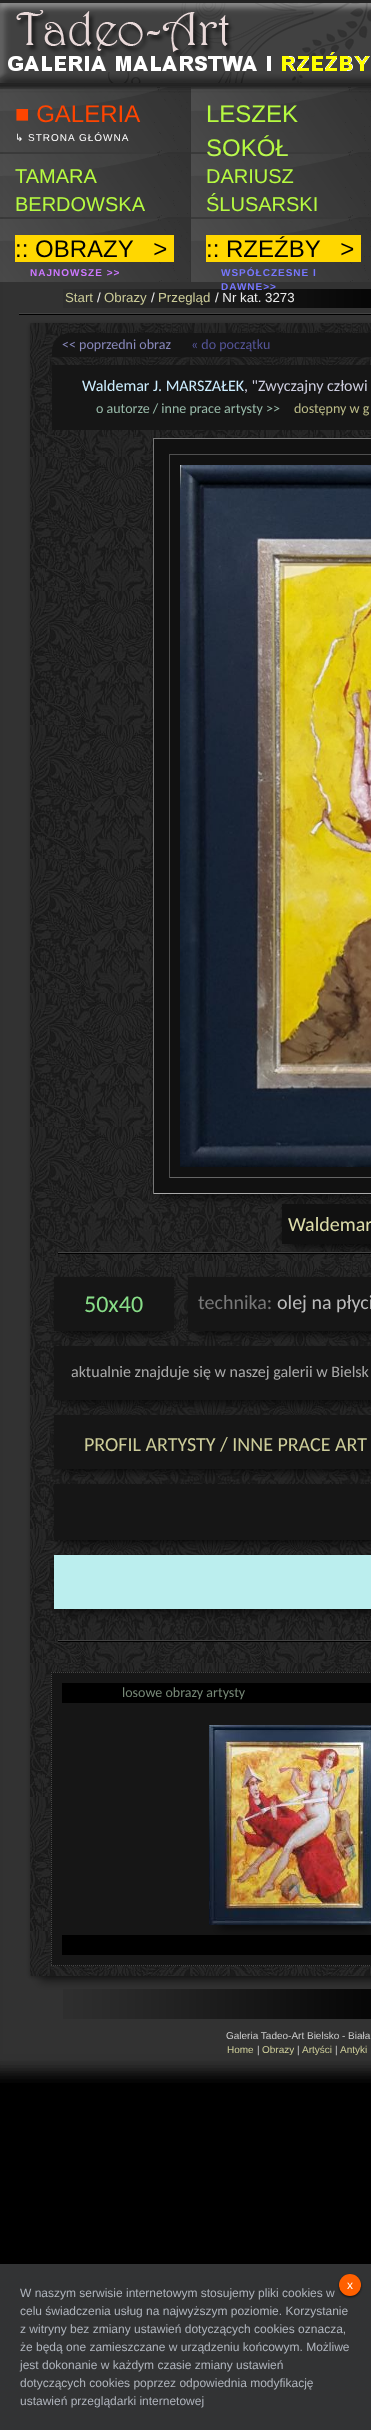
<svg xmlns="http://www.w3.org/2000/svg" width="371" height="2430" viewBox="0 0 371 2430">
  <defs>
    <filter id="blur1" x="-50%" y="-200%" width="200%" height="500%"><feGaussianBlur stdDeviation="7.5"/></filter>
    <filter id="blur2" x="-50%" y="-200%" width="200%" height="500%"><feGaussianBlur stdDeviation="2.5"/></filter>
    <filter id="blur3" x="-50%" y="-200%" width="200%" height="500%"><feGaussianBlur stdDeviation="2"/></filter>
    <filter id="blur4" x="-50%" y="-200%" width="200%" height="500%"><feGaussianBlur stdDeviation="5"/></filter>
    <filter id="blur5" x="-50%" y="-200%" width="200%" height="500%"><feGaussianBlur stdDeviation="1"/></filter>
  </defs>
  <rect width="100%" height="100%" fill="#000000"/>
  <rect x="-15" y="-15" width="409" height="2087" fill="#333333" filter="url(#blur1)"/>
  <rect x="-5" y="-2" width="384" height="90" fill="#222222" filter="url(#blur2)"/>
  <image x="0" y="3" width="371" height="80" href="img1.png"/>
  <image x="0" y="87" width="190" height="65" href="img2.png"/>
  <text x="15" y="122" font-family="Liberation Sans" font-size="24" fill="#ff4500">■ GALERIA</text>
  <text x="15" y="141" font-family="DejaVu Sans" font-size="10" letter-spacing="1" fill="#ffffff">↳</text>
  <text x="28" y="141" font-family="Liberation Sans" font-size="10" letter-spacing="1" fill="#ffffff">STRONA GŁÓWNA</text>
  <image x="191" y="87" width="180" height="65" href="img3.png"/>
  <text x="206" y="122" font-family="Liberation Sans" font-size="24" fill="#b6fa41">LESZEK</text>
  <text x="206" y="156" font-family="Liberation Sans" font-size="24" fill="#b6fa41">SOKÓŁ</text>
  <image x="0" y="152" width="190" height="65" href="img4.png"/>
  <text x="15" y="183" font-family="Liberation Sans" font-size="20" fill="#b6fa41">TAMARA</text>
  <text x="15" y="211" font-family="Liberation Sans" font-size="20" fill="#b6fa41">BERDOWSKA</text>
  <image x="191" y="152" width="180" height="65" href="img5.png"/>
  <text x="206" y="183" font-family="Liberation Sans" font-size="20" fill="#b6fa41">DARIUSZ</text>
  <text x="206" y="211" font-family="Liberation Sans" font-size="20" fill="#b6fa41">ŚLUSARSKI</text>
  <image x="0" y="217" width="190" height="65" href="img4.png"/>
  <rect x="15" y="235" width="159" height="27" fill="#ffd700"/>
  <text x="15" y="257" font-family="Liberation Sans" font-size="24" fill="#000000" xml:space="preserve">:: OBRAZY   &gt;</text>
  <text x="30" y="276" font-family="Liberation Sans" font-size="10" font-weight="bold" letter-spacing="1" fill="#cc77ff">NAJNOWSZE &gt;&gt;</text>
  <image x="191" y="217" width="180" height="65" href="img6.png"/>
  <rect x="206" y="235" width="155" height="27" fill="#ffd700"/>
  <text x="206" y="257" font-family="Liberation Sans" font-size="24" fill="#000000" xml:space="preserve">:: RZEŹBY   &gt;</text>
  <text x="221" y="276" font-family="Liberation Sans" font-size="10" font-weight="bold" letter-spacing="1" fill="#7777ff">WSPÓŁCZESNE I</text>
  <image x="63" y="289" width="308" height="19" href="img7.png"/>
  <text x="221" y="290" font-family="Liberation Sans" font-size="10" font-weight="bold" letter-spacing="1" fill="#7777ff">DAWNE&gt;&gt;</text>
  <text x="65" y="302" font-family="Liberation Sans" font-size="13.25" fill="#cccc99">Start</text>
  <text x="97" y="302" font-family="Liberation Sans" font-size="13.25" fill="#eeeeee">/</text>
  <text x="104" y="302" font-family="Liberation Sans" font-size="13.25" fill="#cccc99">Obrazy</text>
  <text x="151" y="302" font-family="Liberation Sans" font-size="13.25" fill="#eeeeee">/</text>
  <text x="158" y="302" font-family="Liberation Sans" font-size="13.25" fill="#cccc99">Przegląd</text>
  <text x="215" y="302" font-family="Liberation Sans" font-size="13.25" fill="#eeeeee">/ Nr kat. 3273</text>
  <rect x="19" y="313" width="352" height="1" fill="#444444"/>
  <rect x="19" y="314" width="352" height="1" fill="#000000"/>
  <rect x="30" y="324" width="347" height="1653" fill="#000000" fill-opacity="0.3" filter="url(#blur3)"/>
  <rect x="40" y="348" width="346" height="1633" fill="#000000" fill-opacity="0.5" filter="url(#blur4)"/>
  <image x="30" y="323" width="341" height="1653" href="img8.png"/>
  <path d="M70 333H371C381 333 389 341 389 351V357H52V351C52 341 60 333 70 333Z" fill="#161616"/>
  <text x="62" y="349" font-family="Carlito" font-size="14" fill="#8888bb">&lt;&lt; poprzedni obraz</text>
  <text x="191" y="349" font-family="Carlito" font-size="14" fill="#555599">« do początku</text>
  <rect x="52" y="365" width="319" height="65" fill="#161616"/>
  <text x="82" y="391" font-family="Carlito" font-size="16" fill="#cceeff">Waldemar J. MARSZAŁEK</text>
  <text x="244" y="391" font-family="Carlito" font-size="16" fill="#ccccdd">, "Zwyczajny człowi</text>
  <text x="96" y="413" font-family="Carlito" font-size="14" fill="#99bbaa">o autorze / inne prace artysty &gt;&gt;</text>
  <text x="294" y="413" font-family="Carlito" font-size="14" fill="#bbbb88">dostępny w g</text>
  <rect x="153" y="439" width="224" height="756" fill="#000000" fill-opacity="0.3" filter="url(#blur3)"/>
  <rect x="163" y="463" width="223" height="736" fill="#000000" fill-opacity="0.5" filter="url(#blur4)"/>
  <rect x="154" y="439" width="217" height="754" fill="#111111"/>
  <rect x="153" y="438" width="218" height="1" fill="#777777"/>
  <rect x="153" y="1193" width="218" height="1" fill="#aaaaaa"/>
  <rect x="153" y="438" width="1" height="756" fill="#777777"/>
  <rect x="169" y="454" width="202" height="1" fill="#4f4f4f"/>
  <rect x="169" y="1177" width="202" height="1" fill="#666666"/>
  <rect x="169" y="454" width="1" height="724" fill="#4f4f4f"/>
  <image x="180" y="465" width="191" height="702" href="img9.png"/>
  <rect x="282" y="1205" width="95" height="40" fill="#000000" fill-opacity="0.3" filter="url(#blur3)"/>
  <rect x="292" y="1229" width="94" height="20" fill="#000000" fill-opacity="0.5" filter="url(#blur4)"/>
  <rect x="282" y="1204" width="89" height="40" fill="#111111"/>
  <text x="288" y="1231" font-family="Carlito" font-size="20" fill="#ddddaa">Waldemar</text>
  <rect x="58" y="1252" width="313" height="1" fill="#444444"/>
  <rect x="58" y="1253" width="313" height="1" fill="#000000"/>
  <rect x="54" y="1278" width="120" height="54" fill="#000000" fill-opacity="0.3" filter="url(#blur3)"/>
  <rect x="64" y="1302" width="100" height="34" fill="#000000" fill-opacity="0.5" filter="url(#blur4)"/>
  <rect x="54" y="1277" width="120" height="54" fill="#161616"/>
  <text x="84" y="1312" font-family="Carlito" font-size="24" fill="#88dd88">50x40</text>
  <rect x="188" y="1278" width="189" height="54" fill="#000000" fill-opacity="0.3" filter="url(#blur3)"/>
  <rect x="198" y="1302" width="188" height="34" fill="#000000" fill-opacity="0.5" filter="url(#blur4)"/>
  <rect x="188" y="1277" width="183" height="54" fill="#161616"/>
  <text x="198" y="1309" font-family="Carlito" font-size="20" fill="#777777">technika:</text>
  <text x="277" y="1309" font-family="Carlito" font-size="20" fill="#bbbbbb">olej na płyci</text>
  <rect x="54" y="1347" width="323" height="54" fill="#000000" fill-opacity="0.3" filter="url(#blur3)"/>
  <rect x="64" y="1371" width="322" height="34" fill="#000000" fill-opacity="0.5" filter="url(#blur4)"/>
  <rect x="54" y="1346" width="317" height="54" fill="#161616"/>
  <text x="71" y="1377" font-family="Carlito" font-size="16" fill="#aaaaaa">aktualnie znajduje się w naszej galerii w Bielsk</text>
  <rect x="54" y="1416" width="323" height="54" fill="#000000" fill-opacity="0.3" filter="url(#blur3)"/>
  <rect x="64" y="1440" width="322" height="34" fill="#000000" fill-opacity="0.5" filter="url(#blur4)"/>
  <rect x="54" y="1415" width="317" height="54" fill="#161616"/>
  <text x="84" y="1451" font-family="Carlito" font-size="20" fill="#cccc99">PROFIL ARTYSTY / INNE PRACE ART</text>
  <rect x="54" y="1485" width="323" height="56" fill="#000000" fill-opacity="0.3" filter="url(#blur3)"/>
  <rect x="64" y="1509" width="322" height="36" fill="#000000" fill-opacity="0.5" filter="url(#blur4)"/>
  <rect x="54" y="1484" width="317" height="56" fill="#161616"/>
  <rect x="54" y="1556" width="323" height="54" fill="#000000" fill-opacity="0.3" filter="url(#blur3)"/>
  <rect x="64" y="1580" width="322" height="34" fill="#000000" fill-opacity="0.5" filter="url(#blur4)"/>
  <rect x="54" y="1555" width="317" height="54" fill="#bbeeee"/>
  <rect x="58" y="1640" width="313" height="1" fill="#444444"/>
  <rect x="58" y="1641" width="313" height="1" fill="#000000"/>
  <rect x="51" y="1672" width="320" height="294" fill="#161616"/>
  <path d="M51 1672.5H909" fill="none" stroke="#444444" stroke-dasharray="1 1"/>
  <path d="M51 1965.5H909" fill="none" stroke="#444444" stroke-dasharray="1 1"/>
  <path d="M51.5 1672V1966" fill="none" stroke="#444444" stroke-dasharray="1 1"/>
  <rect x="62" y="1683" width="309" height="20" fill="#000000"/>
  <text x="122" y="1697" font-family="Carlito" font-size="14" fill="#778877">losowe obrazy artysty</text>
  <rect x="62" y="1935" width="309" height="20" fill="#000000"/>
  <rect x="219" y="1750" width="151" height="180" fill="#000000" fill-opacity="0.5" filter="url(#blur4)"/>
  <image x="209" y="1725" width="162" height="200" href="img10.png"/>
  <image x="63" y="1989" width="308" height="30" href="img11.png"/>
  <text x="226" y="2039" font-family="Liberation Sans" font-size="10" fill="#cccccc">Galeria Tadeo-Art Bielsko - Biała</text>
  <text x="227" y="2053" font-family="Liberation Sans" font-size="10" fill="#cccc99">Home</text>
  <text x="257" y="2053" font-family="Liberation Sans" font-size="10" fill="#cccccc">|</text>
  <text x="262" y="2053" font-family="Liberation Sans" font-size="10" fill="#cccc99">Obrazy</text>
  <text x="297" y="2053" font-family="Liberation Sans" font-size="10" fill="#cccccc">|</text>
  <text x="302" y="2053" font-family="Liberation Sans" font-size="10" fill="#cccc99">Artyści</text>
  <text x="335" y="2053" font-family="Liberation Sans" font-size="10" fill="#cccccc">|</text>
  <text x="340" y="2053" font-family="Liberation Sans" font-size="10" fill="#cccc99">Antyki</text>
  <rect x="0" y="2264" width="371" height="166" fill="#323334"/>
  <rect x="339" y="2275" width="22" height="22" rx="11" fill="#000000" fill-opacity="0.75" filter="url(#blur5)"/>
  <circle cx="350" cy="2285" r="11" fill="#ff6000"/>
  <text x="347" y="2289" font-family="Liberation Sans" font-size="12" fill="#ffffff">x</text>
  <text x="20" y="2297" font-family="Liberation Sans" font-size="12" fill="#afb4bc">W naszym serwisie internetowym stosujemy pliki cookies w</text>
  <text x="20" y="2315" font-family="Liberation Sans" font-size="12" fill="#afb4bc">celu świadczenia usług na najwyższym poziomie. Korzystanie</text>
  <text x="20" y="2333" font-family="Liberation Sans" font-size="12" fill="#afb4bc">z witryny bez zmiany ustawień dotyczących cookies oznacza,</text>
  <text x="20" y="2351" font-family="Liberation Sans" font-size="12" fill="#afb4bc">że będą one zamieszczane w urządzeniu końcowym. Możliwe</text>
  <text x="20" y="2369" font-family="Liberation Sans" font-size="12" fill="#afb4bc">jest dokonanie w każdym czasie zmiany ustawień</text>
  <text x="20" y="2387" font-family="Liberation Sans" font-size="12" fill="#afb4bc">dotyczących cookies poprzez odpowiednia modyfikację</text>
  <text x="20" y="2405" font-family="Liberation Sans" font-size="12" fill="#afb4bc">ustawień przeglądarki internetowej</text>
</svg>
